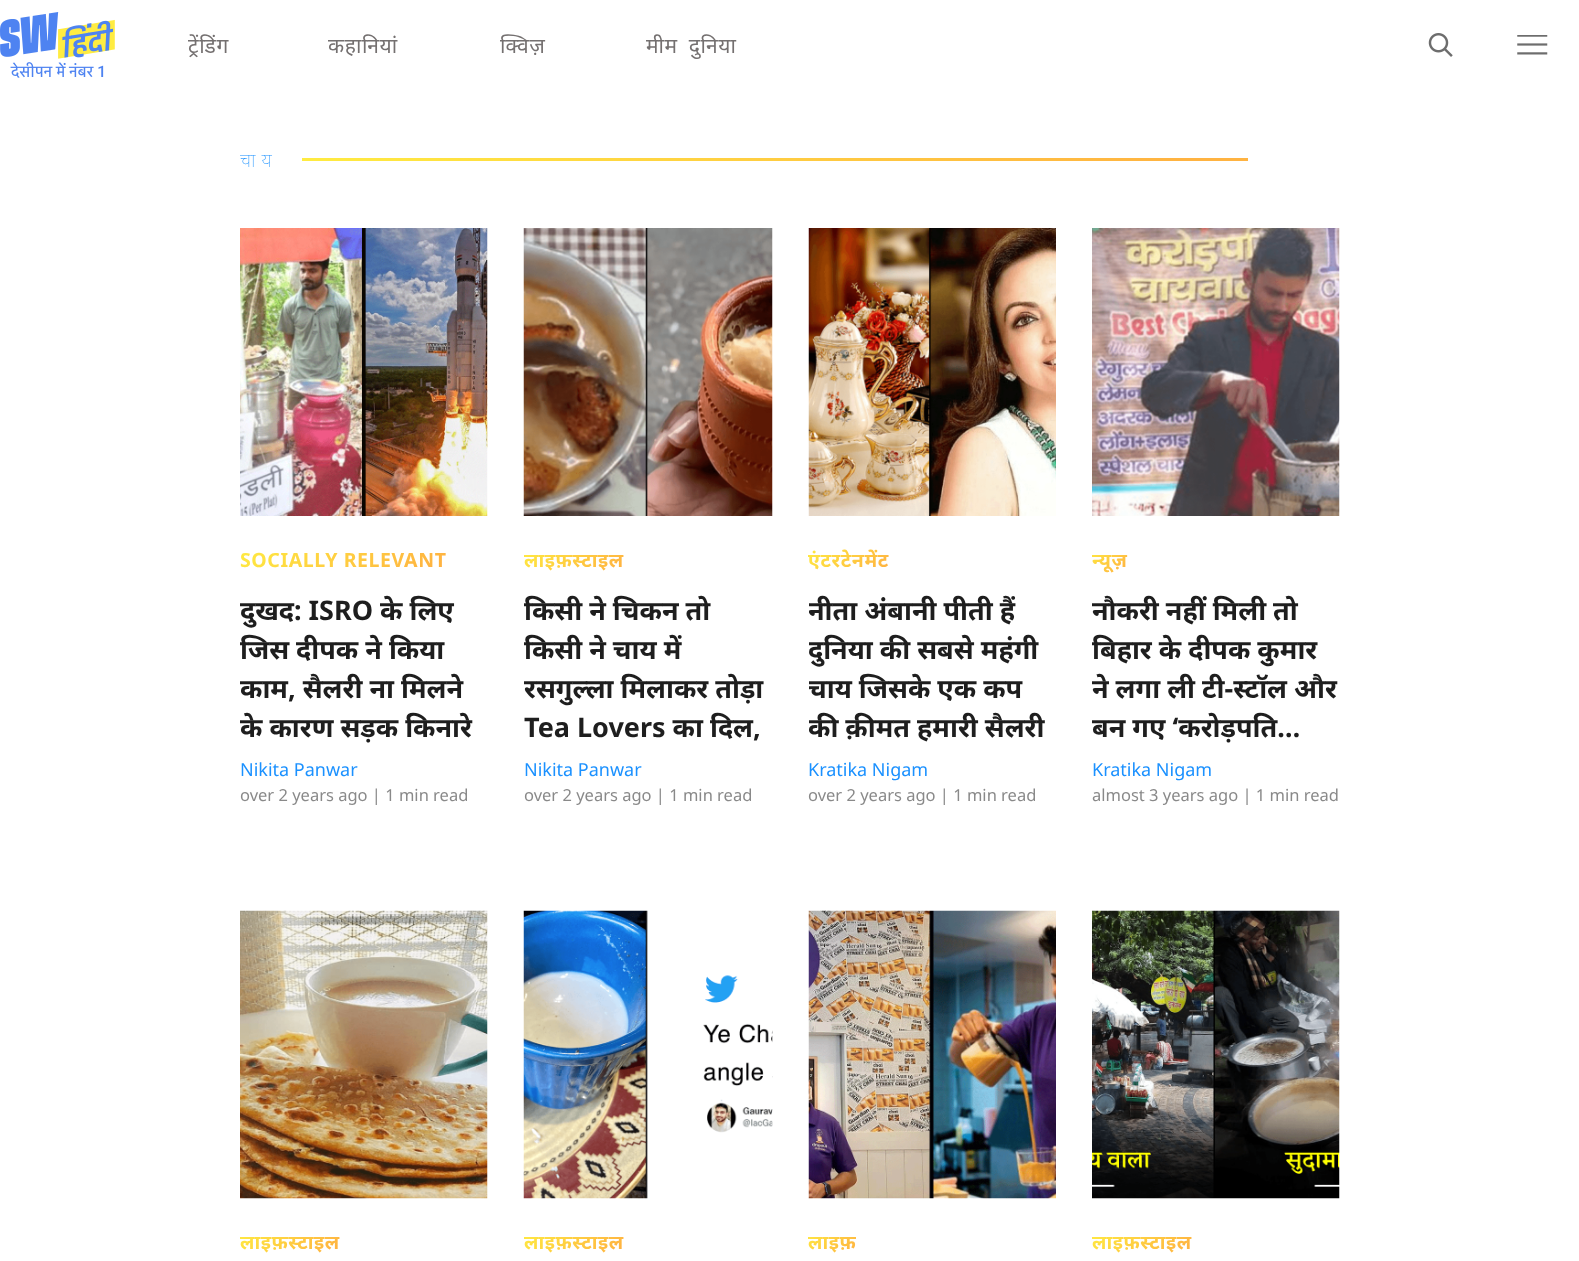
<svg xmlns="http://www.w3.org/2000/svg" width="1579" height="1261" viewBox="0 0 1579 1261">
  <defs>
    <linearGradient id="g1" gradientUnits="userSpaceOnUse" x1="285" y1="500" x2="400" y2="619"><stop offset="0" stop-color="#ffec41"/><stop offset="0.93" stop-color="#ffb341"/></linearGradient>
    <linearGradient id="g2" gradientUnits="userSpaceOnUse" x1="542" y1="-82" x2="1004" y2="396"><stop offset="0" stop-color="#ffec41"/><stop offset="0.93" stop-color="#ffb341"/></linearGradient>
    <clipPath id="clip1"><rect x="240" y="590" width="248" height="156"/></clipPath>
    <linearGradient id="g3" gradientUnits="userSpaceOnUse" x1="542" y1="527" x2="605" y2="593"><stop offset="0" stop-color="#ffec41"/><stop offset="0.93" stop-color="#ffb341"/></linearGradient>
    <clipPath id="clip2"><rect x="524" y="590" width="249" height="156"/></clipPath>
    <linearGradient id="g4" gradientUnits="userSpaceOnUse" x1="821" y1="532" x2="875" y2="588"><stop offset="0" stop-color="#ffec41"/><stop offset="0.93" stop-color="#ffb341"/></linearGradient>
    <clipPath id="clip3"><rect x="809" y="590" width="247" height="156"/></clipPath>
    <linearGradient id="g5" gradientUnits="userSpaceOnUse" x1="1093" y1="544" x2="1125" y2="576"><stop offset="0" stop-color="#ffec41"/><stop offset="0.93" stop-color="#ffb341"/></linearGradient>
    <clipPath id="clip4"><rect x="1092" y="590" width="248" height="156"/></clipPath>
    <linearGradient id="g6" gradientUnits="userSpaceOnUse" x1="258" y1="1209" x2="321" y2="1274"><stop offset="0" stop-color="#ffec41"/><stop offset="0.93" stop-color="#ffb341"/></linearGradient>
    <linearGradient id="g7" gradientUnits="userSpaceOnUse" x1="542" y1="1209" x2="605" y2="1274"><stop offset="0" stop-color="#ffec41"/><stop offset="0.93" stop-color="#ffb341"/></linearGradient>
    <linearGradient id="g8" gradientUnits="userSpaceOnUse" x1="813" y1="1222" x2="851" y2="1261"><stop offset="0" stop-color="#ffec41"/><stop offset="0.93" stop-color="#ffb341"/></linearGradient>
    <linearGradient id="g9" gradientUnits="userSpaceOnUse" x1="1110" y1="1209" x2="1173" y2="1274"><stop offset="0" stop-color="#ffec41"/><stop offset="0.93" stop-color="#ffb341"/></linearGradient>
  </defs>
  <rect width="100%" height="100%" fill="#ffffff"/>
  <image x="0" y="12" width="115" height="66" href="img1.png"/>
  <text x="188" y="53" font-family="Noto Sans" font-size="21" letter-spacing="0.6" fill="#747070">ट्रेंडिंग</text>
  <text x="328" y="53" font-family="Noto Sans" font-size="21" letter-spacing="0.6" fill="#747070">कहानियां</text>
  <text x="500" y="53" font-family="Noto Sans" font-size="21" letter-spacing="0.6" fill="#747070">क्विज़</text>
  <text x="646" y="53" word-spacing="5" font-family="Noto Sans" font-size="21" letter-spacing="0.6" fill="#747070">मीम दुनिया</text>
  <image x="1428" y="33" width="25" height="24" href="img2.png"/>
  <image x="1517" y="35" width="31" height="20" href="img3.png"/>
  <text x="240" y="167" font-family="Noto Sans" font-size="19.5" font-weight="100" letter-spacing="6" fill="#1b91ff">चाय</text>
  <rect x="302" y="158" width="946" height="3" fill="url(#g2)"/>
  <image x="240" y="228" width="248" height="288" href="img4.png"/>
  <text x="240" y="567" font-family="Noto Sans" font-size="19.5" font-weight="bold" letter-spacing="0.6" fill="url(#g1)">SOCIALLY RELEVANT</text>
  <text x="240" y="620" font-family="Noto Sans" font-size="27" font-weight="bold" fill="#1e1e1e">दुखद: ISRO के लिए</text>
  <text x="240" y="659" font-family="Noto Sans" font-size="27" font-weight="bold" fill="#1e1e1e">जिस दीपक ने किया</text>
  <text x="240" y="698" font-family="Noto Sans" font-size="27" font-weight="bold" fill="#1e1e1e">काम, सैलरी ना मिलने</text>
  <g clip-path="url(#clip1)">
    <text x="240" y="737" font-family="Noto Sans" font-size="27" font-weight="bold" fill="#1e1e1e">के कारण सड़क किनारे</text>
  </g>
  <text x="240" y="776" font-family="Noto Sans" font-size="18" fill="#1b91ff">Nikita Panwar</text>
  <text x="240" y="801" font-family="Noto Sans" font-size="16.5" fill="#898989">over 2 years ago | 1 min read</text>
  <image x="523" y="228" width="250" height="288" href="img5.png"/>
  <text x="524" y="567" font-family="Noto Sans" font-size="19.5" font-weight="bold" letter-spacing="0.6" fill="url(#g3)">लाइफ़स्टाइल</text>
  <g clip-path="url(#clip2)">
    <text x="524" y="620" font-family="Noto Sans" font-size="27" font-weight="bold" fill="#1e1e1e">किसी ने चिकन तो</text>
    <text x="524" y="659" font-family="Noto Sans" font-size="27" font-weight="bold" fill="#1e1e1e">किसी ने चाय में</text>
    <text x="524" y="698" font-family="Noto Sans" font-size="27" font-weight="bold" fill="#1e1e1e">रसगुल्ला मिलाकर तोड़ा</text>
  </g>
  <text x="524" y="737" font-family="Noto Sans" font-size="27" font-weight="bold" fill="#1e1e1e">Tea Lovers का दिल,</text>
  <text x="524" y="776" font-family="Noto Sans" font-size="18" fill="#1b91ff">Nikita Panwar</text>
  <text x="524" y="801" font-family="Noto Sans" font-size="16.5" fill="#898989">over 2 years ago | 1 min read</text>
  <image x="808" y="228" width="248" height="288" href="img6.png"/>
  <text x="808" y="567" font-family="Noto Sans" font-size="19.5" font-weight="bold" letter-spacing="0.6" fill="url(#g4)">एंटरटेनमेंट</text>
  <g clip-path="url(#clip3)">
    <text x="808" y="620" font-family="Noto Sans" font-size="27" font-weight="bold" fill="#1e1e1e">नीता अंबानी पीती हैं</text>
    <text x="808" y="659" font-family="Noto Sans" font-size="27" font-weight="bold" fill="#1e1e1e">दुनिया की सबसे महंगी</text>
    <text x="808" y="698" font-family="Noto Sans" font-size="27" font-weight="bold" fill="#1e1e1e">चाय जिसके एक कप</text>
    <text x="808" y="737" font-family="Noto Sans" font-size="27" font-weight="bold" fill="#1e1e1e">की क़ीमत हमारी सैलरी</text>
  </g>
  <text x="808" y="776" font-family="Noto Sans" font-size="18" fill="#1b91ff">Kratika Nigam</text>
  <text x="808" y="801" font-family="Noto Sans" font-size="16.5" fill="#898989">over 2 years ago | 1 min read</text>
  <image x="1092" y="228" width="248" height="288" href="img7.png"/>
  <text x="1092" y="567" font-family="Noto Sans" font-size="19.5" font-weight="bold" letter-spacing="0.6" fill="url(#g5)">न्यूज़</text>
  <g clip-path="url(#clip4)">
    <text x="1092" y="620" font-family="Noto Sans" font-size="27" font-weight="bold" fill="#1e1e1e">नौकरी नहीं मिली तो</text>
    <text x="1092" y="659" font-family="Noto Sans" font-size="27" font-weight="bold" fill="#1e1e1e">बिहार के दीपक कुमार</text>
    <text x="1092" y="698" font-family="Noto Sans" font-size="27" font-weight="bold" fill="#1e1e1e">ने लगा ली टी-स्टॉल और</text>
    <text x="1092" y="737" font-family="Noto Sans" font-size="27" font-weight="bold" fill="#1e1e1e">बन गए ‘करोड़पति…</text>
  </g>
  <text x="1092" y="776" font-family="Noto Sans" font-size="18" fill="#1b91ff">Kratika Nigam</text>
  <text x="1092" y="801" font-family="Noto Sans" font-size="16.5" fill="#898989">almost 3 years ago | 1 min read</text>
  <image x="240" y="910" width="248" height="289" href="img8.png"/>
  <text x="240" y="1249" font-family="Noto Sans" font-size="19.5" font-weight="bold" letter-spacing="0.6" fill="url(#g6)">लाइफ़स्टाइल</text>
  <image x="523" y="910" width="250" height="289" href="img9.png"/>
  <text x="524" y="1249" font-family="Noto Sans" font-size="19.5" font-weight="bold" letter-spacing="0.6" fill="url(#g7)">लाइफ़स्टाइल</text>
  <image x="808" y="910" width="248" height="289" href="img10.png"/>
  <text x="808" y="1249" font-family="Noto Sans" font-size="19.5" font-weight="bold" letter-spacing="0.6" fill="url(#g8)">लाइफ़</text>
  <image x="1092" y="910" width="248" height="289" href="img11.png"/>
  <text x="1092" y="1249" font-family="Noto Sans" font-size="19.5" font-weight="bold" letter-spacing="0.6" fill="url(#g9)">लाइफ़स्टाइल</text>
</svg>
